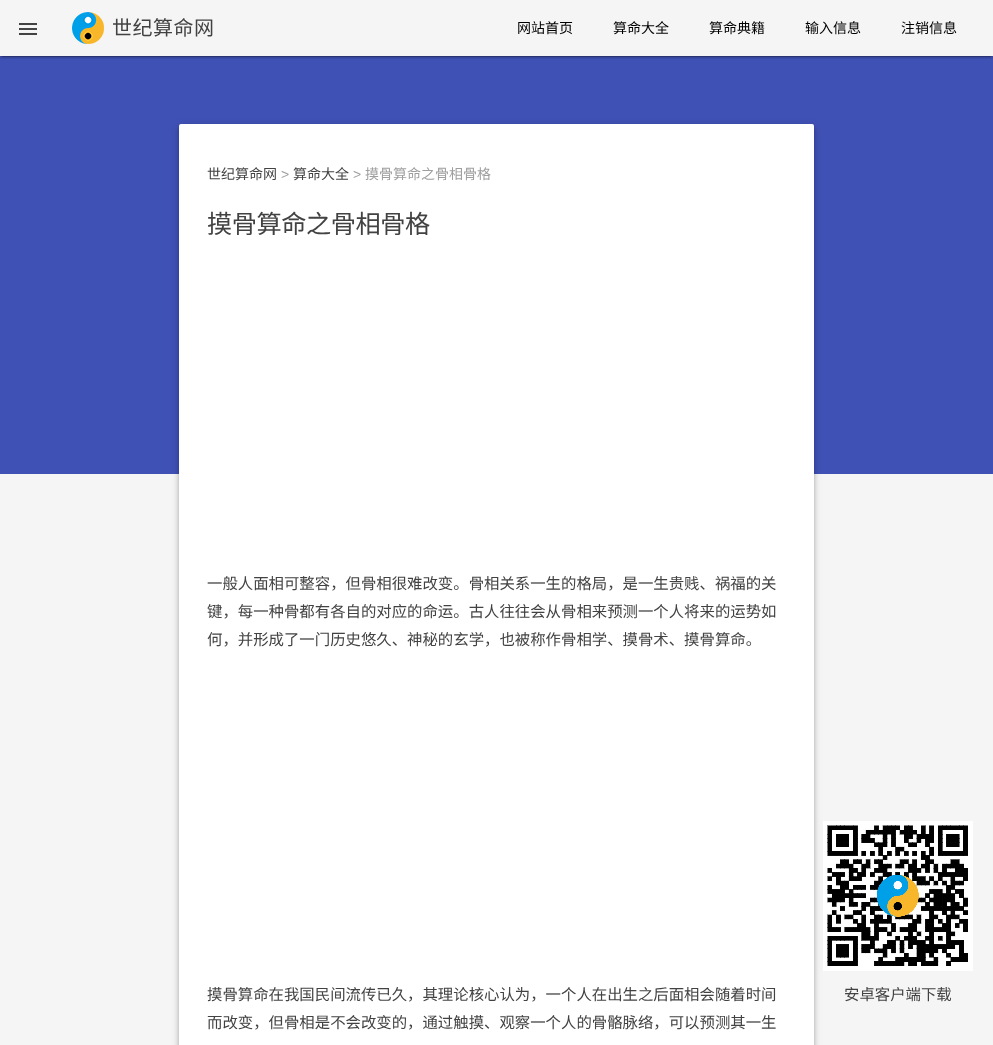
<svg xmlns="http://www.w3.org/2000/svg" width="993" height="1045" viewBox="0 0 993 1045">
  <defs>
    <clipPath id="clip1"><rect x="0" y="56" width="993" height="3"/></clipPath>
    <filter id="blur1" x="-50%" y="-200%" width="200%" height="500%"><feGaussianBlur stdDeviation="2.5"/></filter>
    <clipPath id="clip2"><rect x="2" y="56" width="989" height="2"/></clipPath>
    <filter id="blur2" x="-50%" y="-200%" width="200%" height="500%"><feGaussianBlur stdDeviation="0.5"/></filter>
    <filter id="blur3" x="-50%" y="-200%" width="200%" height="500%"><feGaussianBlur stdDeviation="1"/></filter>
    <filter id="blur4" x="-50%" y="-200%" width="200%" height="500%"><feGaussianBlur stdDeviation="2"/></filter>
    <filter id="blur5" x="-50%" y="-200%" width="200%" height="500%"><feGaussianBlur stdDeviation="5"/></filter>
  </defs>
  <rect width="100%" height="100%" fill="#f5f5f5"/>
  <rect x="0" y="56" width="993" height="418" fill="#3f51b5"/>
  <g clip-path="url(#clip1)">
    <rect x="0" y="1" width="993" height="56" fill="#000000" fill-opacity="0.12" filter="url(#blur1)"/>
  </g>
  <g clip-path="url(#clip2)">
    <rect x="2" y="5" width="989" height="52" fill="#000000" fill-opacity="0.2" filter="url(#blur2)"/>
  </g>
  <g clip-path="url(#clip1)">
    <rect x="0" y="2" width="993" height="56" fill="#000000" fill-opacity="0.14" filter="url(#blur3)"/>
  </g>
  <image x="19" y="23" width="18" height="12" href="img1.png"/>
  <image x="72" y="12" width="32" height="32" href="img2.png"/>
  <text x="112" y="35" font-family="Noto Sans CJK SC" font-size="20" letter-spacing="0.5" fill="#424242">世纪算命网</text>
  <text x="517" y="33" font-family="Noto Sans CJK SC" font-size="14" fill="#000000">网站首页</text>
  <text x="613" y="33" font-family="Noto Sans CJK SC" font-size="14" fill="#000000">算命大全</text>
  <text x="709" y="33" font-family="Noto Sans CJK SC" font-size="14" fill="#000000">算命典籍</text>
  <text x="805" y="33" font-family="Noto Sans CJK SC" font-size="14" fill="#000000">输入信息</text>
  <text x="901" y="33" font-family="Noto Sans CJK SC" font-size="14" fill="#000000">注销信息</text>
  <rect x="180" y="127" width="633" height="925" rx="1" fill="#000000" fill-opacity="0.2" filter="url(#blur4)"/>
  <rect x="179" y="125" width="635" height="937" rx="2" fill="#000000" fill-opacity="0.12" filter="url(#blur5)"/>
  <rect x="179" y="128" width="635" height="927" rx="2" fill="#000000" fill-opacity="0.14" filter="url(#blur1)"/>
  <rect x="179" y="124" width="635" height="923" rx="2" fill="#ffffff"/>
  <text x="207" y="179" font-family="Noto Sans CJK SC" font-size="14" fill="#424242">世纪算命网</text>
  <text x="281" y="179" font-family="Liberation Sans" font-size="14" fill="#9e9e9e">&gt;</text>
  <text x="293" y="179" font-family="Noto Sans CJK SC" font-size="14" fill="#424242">算命大全</text>
  <text x="353" y="179" font-family="Liberation Sans" font-size="14" fill="#9e9e9e">&gt;</text>
  <text x="365" y="179" font-family="Noto Sans CJK SC" font-size="14" fill="#9e9e9e">摸骨算命之骨相骨格</text>
  <text x="207" y="233" font-family="Noto Sans CJK SC" font-size="25.25" letter-spacing="-0.5" fill="#424242">摸骨算命之骨相骨格</text>
  <text x="207" y="589" font-family="Noto Sans CJK SC" font-size="15.4" fill="#424242">一般人面相可整容，但骨相很难改变。骨相关系一生的格局，是一生贵贱、祸福的关</text>
  <text x="207" y="617" font-family="Noto Sans CJK SC" font-size="15.4" fill="#424242">键，每一种骨都有各自的对应的命运。古人往往会从骨相来预测一个人将来的运势如</text>
  <text x="207" y="645" font-family="Noto Sans CJK SC" font-size="15.4" fill="#424242">何，并形成了一门历史悠久、神秘的玄学，也被称作骨相学、摸骨术、摸骨算命。</text>
  <text x="207" y="1000" font-family="Noto Sans CJK SC" font-size="15.4" fill="#424242">摸骨算命在我国民间流传已久，其理论核心认为，一个人在出生之后面相会随着时间</text>
  <text x="207" y="1028" font-family="Noto Sans CJK SC" font-size="15.4" fill="#424242">而改变，但骨相是不会改变的，通过触摸、观察一个人的骨骼脉络，可以预测其一生</text>
  <image x="823" y="821" width="150" height="150" href="img3.png"/>
  <text x="844" y="1000" font-family="Noto Sans CJK SC" font-size="15.4" fill="#424242">安卓客户端下载</text>
</svg>
